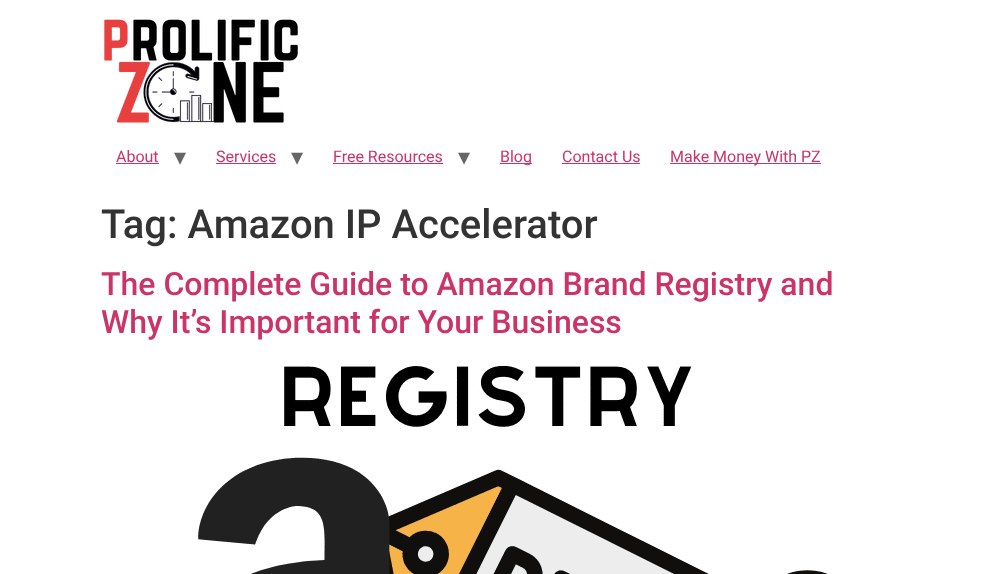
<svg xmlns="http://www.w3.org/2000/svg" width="1002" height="574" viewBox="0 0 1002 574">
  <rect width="100%" height="100%" fill="#ffffff"/>
  <image x="104" y="19" width="194" height="104" href="img1.png"/>
  <text x="116" y="162" font-family="Roboto" font-size="16" fill="#cc3366">About</text>
  <rect x="116" y="163" width="43" height="1" fill="#cc3366"/>
  <text x="174" y="165" font-family="DejaVu Sans" font-size="24" fill="#666666">▾</text>
  <text x="216" y="162" font-family="Roboto" font-size="16" fill="#cc3366">Services</text>
  <rect x="216" y="163" width="60" height="1" fill="#cc3366"/>
  <text x="291" y="165" font-family="DejaVu Sans" font-size="24" fill="#666666">▾</text>
  <text x="333" y="162" font-family="Roboto" font-size="16" fill="#cc3366">Free Resources</text>
  <rect x="333" y="163" width="110" height="1" fill="#cc3366"/>
  <text x="458" y="165" font-family="DejaVu Sans" font-size="24" fill="#666666">▾</text>
  <rect x="500" y="163" width="32" height="1" fill="#cc3366"/>
  <text x="500" y="162" font-family="Roboto" font-size="16" fill="#cc3366">Blog</text>
  <text x="562" y="162" font-family="Roboto" font-size="16" fill="#cc3366">Contact Us</text>
  <rect x="562" y="163" width="78" height="1" fill="#cc3366"/>
  <rect x="670" y="163" width="151" height="1" fill="#cc3366"/>
  <text x="670" y="162" font-family="Roboto" font-size="16" fill="#cc3366">Make Money With PZ</text>
  <text x="101" y="238" font-family="Roboto" font-size="40" font-weight="500" fill="#333333">Tag: Amazon IP Accelerator</text>
  <text x="101" y="295" font-family="Roboto" font-size="32" font-weight="500" fill="#cc3366">The Complete Guide to Amazon Brand Registry and</text>
  <text x="101" y="333" font-family="Roboto" font-size="32" font-weight="500" fill="#cc3366">Why It’s Important for Your Business</text>
  <image x="198" y="365" width="630" height="209" href="img2.png"/>
</svg>
